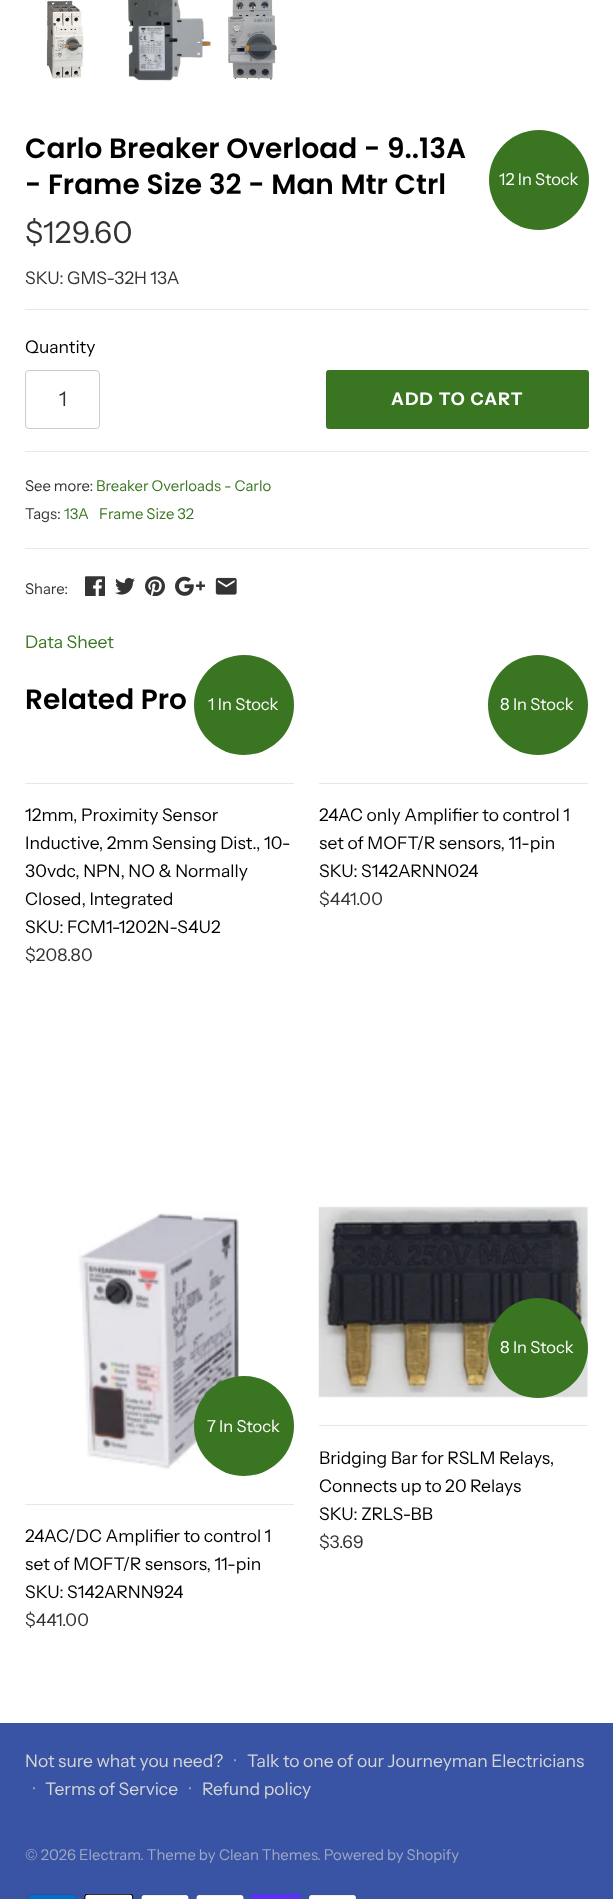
<svg xmlns="http://www.w3.org/2000/svg" width="613" height="1899" viewBox="0 0 613 1899">
  <rect width="100%" height="100%" fill="#ffffff"/>
  <image x="45" y="0" width="39" height="80" href="img1.png"/>
  <image x="128" y="0" width="84" height="81" href="img2.png"/>
  <image x="228" y="0" width="49" height="80" href="img3.png"/>
  <text x="25" y="158" font-family="Poppins" font-size="28" font-weight="600" fill="#000000">Carlo Breaker Overload - 9..13A</text>
  <text x="25" y="194" font-family="Poppins" font-size="28" font-weight="600" fill="#000000">- Frame Size 32 - Man Mtr Ctrl</text>
  <circle cx="539" cy="180" r="50" fill="#3a7622"/>
  <text x="499" y="185" font-family="Instrument Sans" font-size="16.5" fill="#ffffff">12 In Stock</text>
  <text x="25" y="243" font-family="Instrument Sans" font-size="30" fill="#333333">$129.60</text>
  <text x="25" y="284" font-family="Instrument Sans" font-size="17.5" fill="#333333">SKU: GMS-32H 13A</text>
  <rect x="25" y="309" width="564" height="1" fill="#e7e7e7"/>
  <text x="25" y="353" font-family="Instrument Sans" font-size="17.5" fill="#000000">Quantity</text>
  <rect x="25.5" y="370.5" width="74" height="58" rx="3.5" fill="none" stroke="#cccccc"/>
  <text x="59" y="406" font-family="Instrument Sans" font-size="20" fill="#333333">1</text>
  <rect x="326.5" y="370.5" width="262" height="58" rx="2" fill="#3a7622" stroke="#3a7622"/>
  <text x="391" y="405" font-family="Instrument Sans" font-size="17.5" font-weight="bold" letter-spacing="1.25" fill="#ffffff">ADD TO CART</text>
  <rect x="25" y="451" width="564" height="1" fill="#e7e7e7"/>
  <text x="25" y="491" font-family="Instrument Sans" font-size="14.9" fill="#333333">See more:</text>
  <text x="96" y="491" font-family="Instrument Sans" font-size="14.9" fill="#3a7622">Breaker Overloads - Carlo</text>
  <text x="25" y="519" font-family="Instrument Sans" font-size="14.9" fill="#333333">Tags:</text>
  <text x="64" y="519" font-family="Instrument Sans" font-size="14.9" fill="#3a7622">13A</text>
  <text x="99" y="519" font-family="Instrument Sans" font-size="14.9" fill="#3a7622">Frame Size 32</text>
  <rect x="25" y="548" width="564" height="1" fill="#e7e7e7"/>
  <text x="25" y="594" font-family="Instrument Sans" font-size="14.9" fill="#333333">Share:</text>
  <image x="85" y="576" width="20" height="20" href="img4.png"/>
  <image x="115" y="577" width="20" height="18" href="img5.png"/>
  <image x="145" y="576" width="20" height="20" href="img6.png"/>
  <image x="175" y="576" width="30" height="20" href="img7.png"/>
  <image x="215" y="577" width="22" height="18" href="img8.png"/>
  <text x="25" y="648" font-family="Instrument Sans" font-size="17.5" fill="#3a7622">Data Sheet</text>
  <text x="25" y="709" font-family="Poppins" font-size="28" font-weight="600" fill="#000000">Related Pro</text>
  <circle cx="244" cy="705" r="50" fill="#3a7622"/>
  <text x="208" y="710" font-family="Instrument Sans" font-size="16.5" fill="#ffffff">1 In Stock</text>
  <rect x="25" y="783" width="269" height="1" fill="#e7e7e7"/>
  <text x="25" y="821" font-family="Instrument Sans" font-size="17.5" fill="#000000">12mm, Proximity Sensor</text>
  <text x="25" y="849" font-family="Instrument Sans" font-size="17.5" fill="#000000">Inductive, 2mm Sensing Dist., 10-</text>
  <text x="25" y="877" font-family="Instrument Sans" font-size="17.5" fill="#000000">30vdc, NPN, NO &amp; Normally</text>
  <text x="25" y="905" font-family="Instrument Sans" font-size="17.5" fill="#000000">Closed, Integrated</text>
  <text x="25" y="933" font-family="Instrument Sans" font-size="17.5" fill="#000000">SKU: FCM1-1202N-S4U2</text>
  <text x="25" y="961" font-family="Instrument Sans" font-size="17.5" fill="#333333">$208.80</text>
  <circle cx="538" cy="705" r="50" fill="#3a7622"/>
  <text x="500" y="710" font-family="Instrument Sans" font-size="16.5" fill="#ffffff">8 In Stock</text>
  <rect x="319" y="783" width="269" height="1" fill="#e7e7e7"/>
  <text x="319" y="821" font-family="Instrument Sans" font-size="17.5" fill="#000000">24AC only Amplifier to control 1</text>
  <text x="319" y="849" font-family="Instrument Sans" font-size="17.5" fill="#000000">set of MOFT/R sensors, 11-pin</text>
  <text x="319" y="877" font-family="Instrument Sans" font-size="17.5" fill="#000000">SKU: S142ARNN024</text>
  <text x="319" y="905" font-family="Instrument Sans" font-size="17.5" fill="#333333">$441.00</text>
  <image x="78" y="1213" width="162" height="257" href="img9.png"/>
  <circle cx="244" cy="1426" r="50" fill="#3a7622"/>
  <text x="207" y="1432" font-family="Instrument Sans" font-size="16.5" fill="#ffffff">7 In Stock</text>
  <rect x="25" y="1504" width="269" height="1" fill="#e7e7e7"/>
  <text x="25" y="1542" font-family="Instrument Sans" font-size="17.5" fill="#000000">24AC/DC Amplifier to control 1</text>
  <text x="25" y="1570" font-family="Instrument Sans" font-size="17.5" fill="#000000">set of MOFT/R sensors, 11-pin</text>
  <text x="25" y="1598" font-family="Instrument Sans" font-size="17.5" fill="#000000">SKU: S142ARNN924</text>
  <text x="25" y="1626" font-family="Instrument Sans" font-size="17.5" fill="#333333">$441.00</text>
  <image x="318" y="1206" width="270" height="192" href="img10.png"/>
  <circle cx="538" cy="1348" r="50" fill="#3a7622"/>
  <text x="500" y="1353" font-family="Instrument Sans" font-size="16.5" fill="#ffffff">8 In Stock</text>
  <rect x="319" y="1425" width="269" height="1" fill="#e7e7e7"/>
  <text x="319" y="1464" font-family="Instrument Sans" font-size="17.5" fill="#000000">Bridging Bar for RSLM Relays,</text>
  <text x="319" y="1492" font-family="Instrument Sans" font-size="17.5" fill="#000000">Connects up to 20 Relays</text>
  <text x="319" y="1520" font-family="Instrument Sans" font-size="17.5" fill="#000000">SKU: ZRLS-BB</text>
  <text x="319" y="1548" font-family="Instrument Sans" font-size="17.5" fill="#333333">$3.69</text>
  <rect x="0" y="1723" width="613" height="176" fill="#3954a4"/>
  <text x="25" y="1767" font-family="Instrument Sans" font-size="17.5" fill="#d6d6d6">Not sure what you need?</text>
  <text x="234" y="1767" font-family="Instrument Sans" font-size="17.5" fill="#9fa8c4">·</text>
  <text x="247" y="1767" font-family="Instrument Sans" font-size="17.5" fill="#d6d6d6">Talk to one of our Journeyman Electricians</text>
  <text x="33" y="1795" font-family="Instrument Sans" font-size="17.5" fill="#9fa8c4">·</text>
  <text x="45" y="1795" font-family="Instrument Sans" font-size="17.5" fill="#d6d6d6">Terms of Service</text>
  <text x="189" y="1795" font-family="Instrument Sans" font-size="17.5" fill="#9fa8c4">·</text>
  <text x="202" y="1795" font-family="Instrument Sans" font-size="17.5" fill="#d6d6d6">Refund policy</text>
  <text x="25" y="1860" font-family="Instrument Sans" font-size="14.9" fill="#9fa8c4">© 2026 Electram</text>
  <text x="140" y="1860" font-family="Instrument Sans" font-size="14.9" fill="#9fa8c4">. Theme by</text>
  <text x="219" y="1860" font-family="Instrument Sans" font-size="14.9" fill="#9fa8c4">Clean Themes</text>
  <text x="317" y="1860" font-family="Instrument Sans" font-size="14.9" fill="#9fa8c4">. Powered by Shopify</text>
  <image x="28" y="1894" width="49" height="5" href="img11.png"/>
  <image x="84" y="1894" width="50" height="5" href="img12.png"/>
  <image x="140" y="1894" width="50" height="5" href="img13.png"/>
  <image x="195" y="1894" width="50" height="5" href="img14.png"/>
  <rect x="251" y="1894" width="50" height="5" fill="#5a31f4"/>
  <image x="308" y="1894" width="49" height="5" href="img15.png"/>
</svg>
